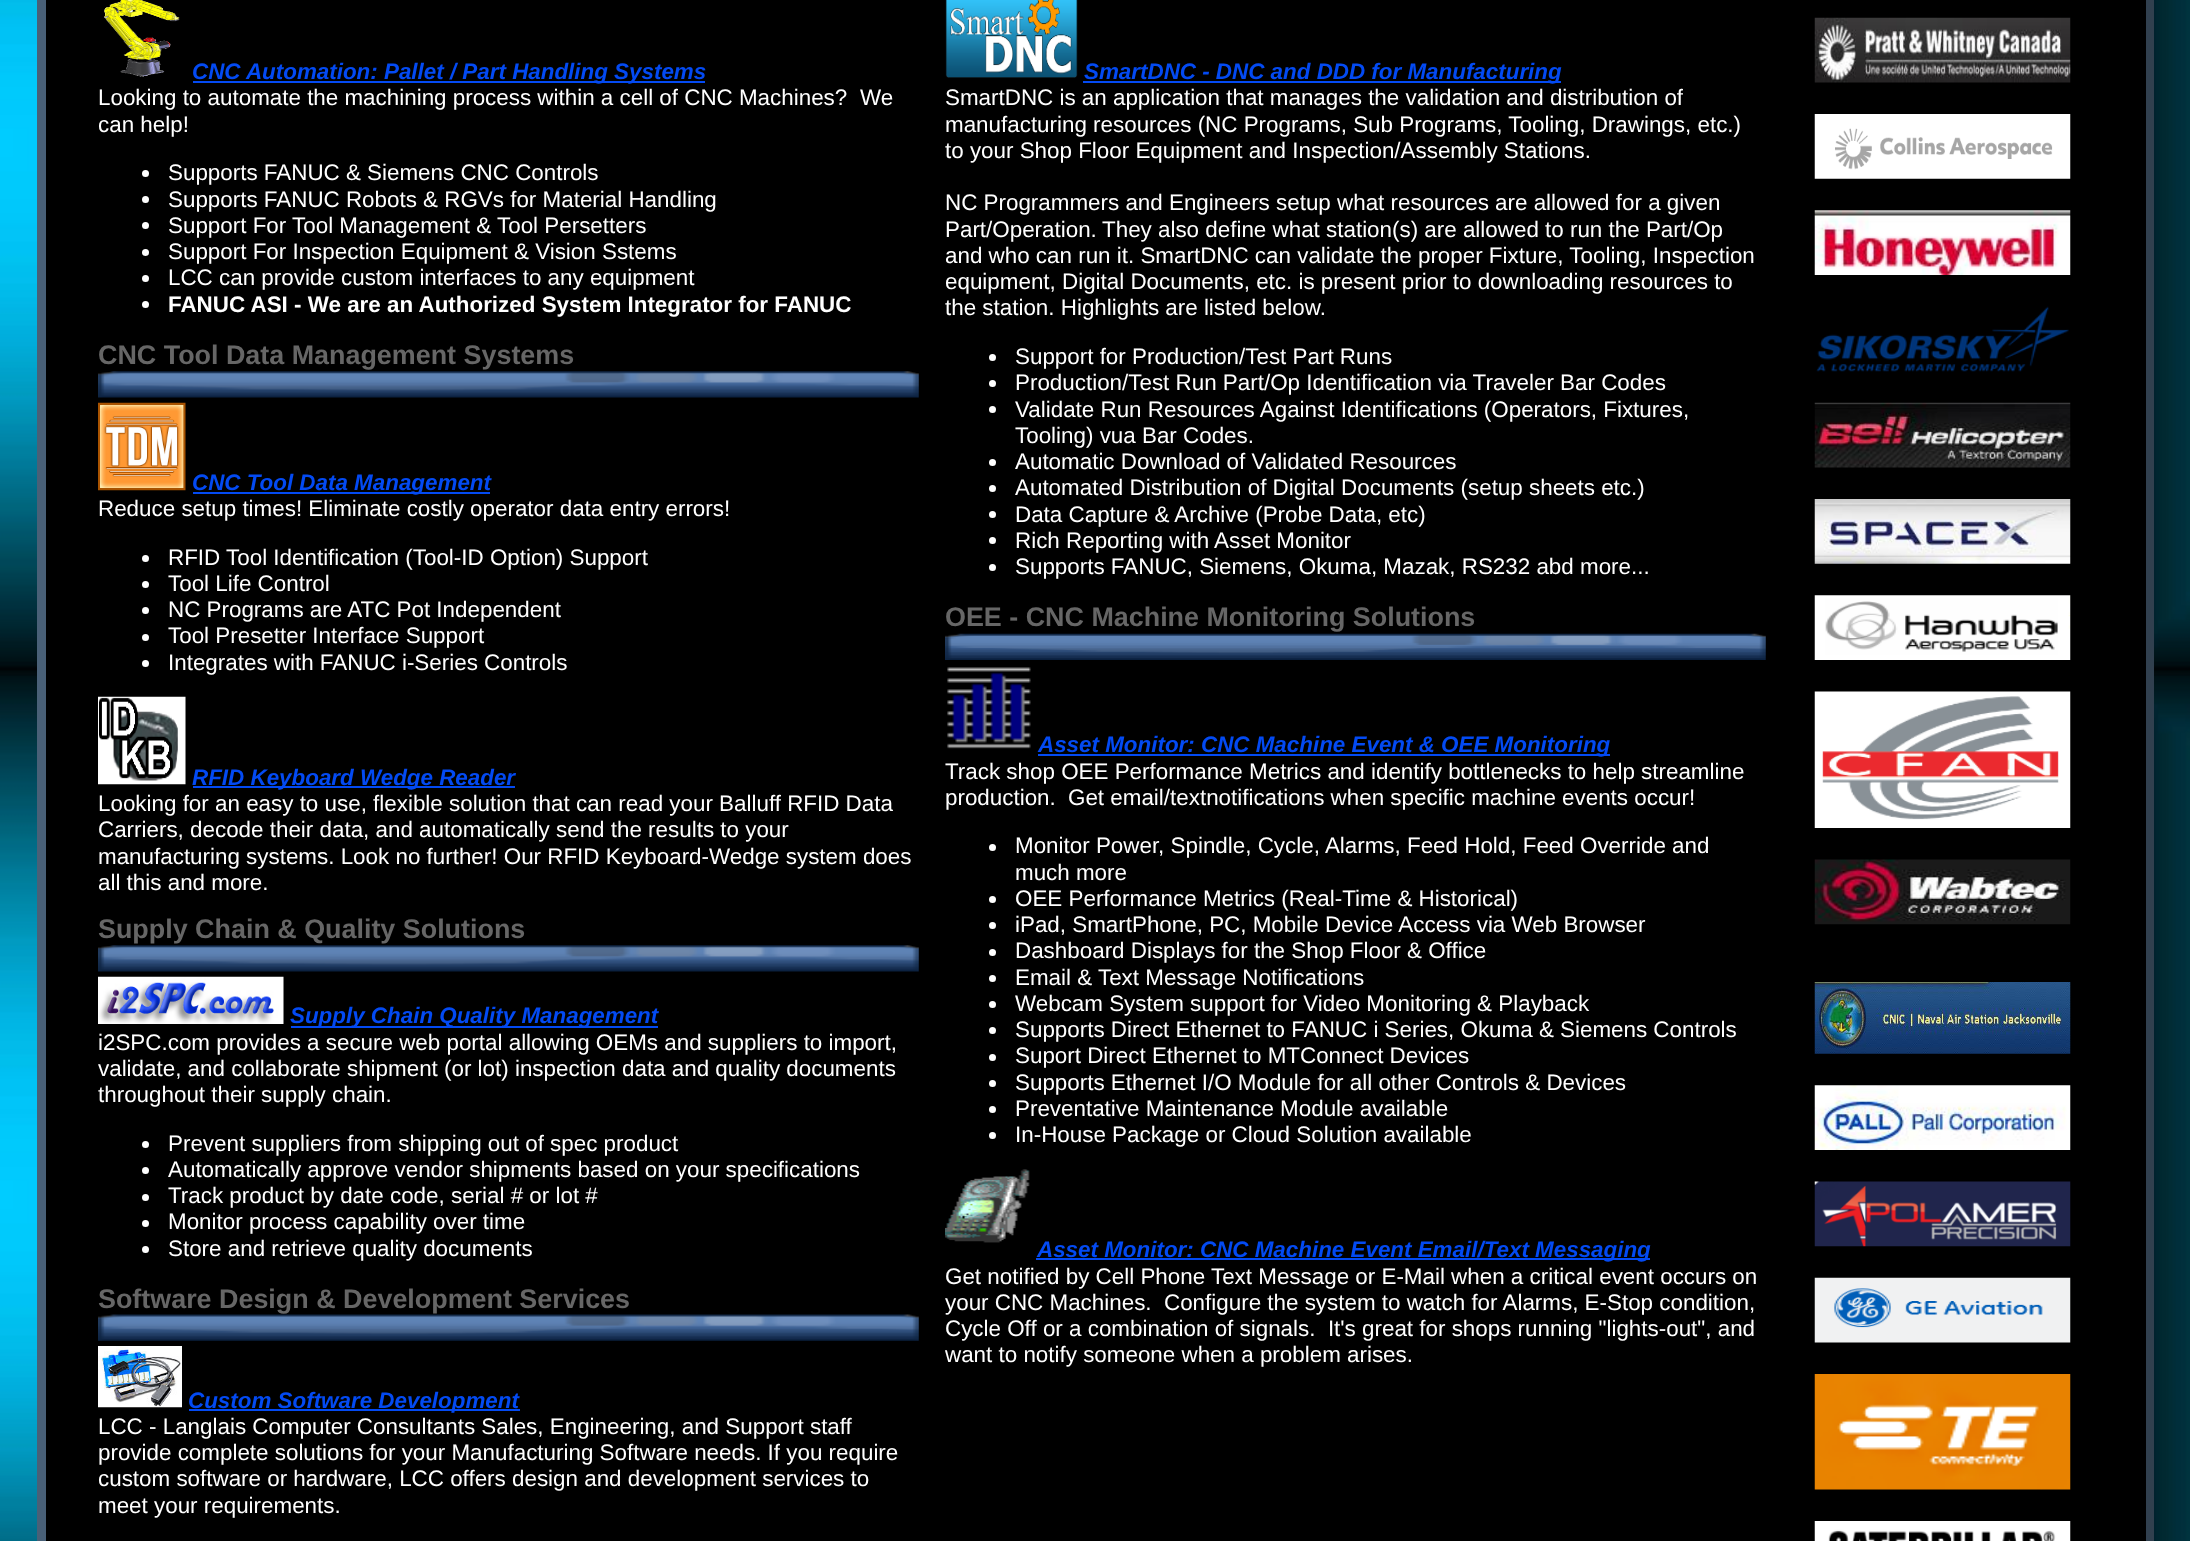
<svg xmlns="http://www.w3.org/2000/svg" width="2190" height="1541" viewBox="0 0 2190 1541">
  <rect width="100%" height="100%" fill="#ffffff"/>
  <image x="0" y="0" width="2190" height="1541" href="img1.png"/>
  <rect x="46" y="0" width="2100" height="1541" fill="#000000"/>
  <path d="M2154-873V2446L2146 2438V-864Z" fill="#31404f"/>
  <path d="M37 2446V-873L46-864V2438Z" fill="#496077"/>
  <image x="104" y="0" width="76" height="77" href="img2.png"/>
  <rect x="193" y="81" width="512" height="2" fill="#034af3"/>
  <text x="192" y="79" font-family="Liberation Sans" font-size="22.4" font-weight="bold" font-style="italic" fill="#034af3">CNC Automation: Pallet / Part Handling Systems</text>
  <text x="98" y="105" font-family="Liberation Sans" font-size="22.4" fill="#ffffff">Looking to automate the machining process within a cell of CNC Machines?</text>
  <text x="860" y="105" font-family="Liberation Sans" font-size="22.4" fill="#ffffff">We</text>
  <text x="98" y="132" font-family="Liberation Sans" font-size="22.4" fill="#ffffff">can help!</text>
  <circle cx="145.5" cy="173.5" r="3.5" fill="#ffffff"/>
  <text x="168" y="180" font-family="Liberation Sans" font-size="22.4" fill="#ffffff">Supports FANUC &amp; Siemens CNC Controls</text>
  <circle cx="145.5" cy="199.5" r="3.5" fill="#ffffff"/>
  <text x="168" y="207" font-family="Liberation Sans" font-size="22.4" fill="#ffffff">Supports FANUC Robots &amp; RGVs for Material Handling</text>
  <circle cx="145.5" cy="225.5" r="3.5" fill="#ffffff"/>
  <text x="168" y="233" font-family="Liberation Sans" font-size="22.4" fill="#ffffff">Support For Tool Management &amp; Tool Persetters</text>
  <circle cx="145.5" cy="252.5" r="3.5" fill="#ffffff"/>
  <text x="168" y="259" font-family="Liberation Sans" font-size="22.4" fill="#ffffff">Support For Inspection Equipment &amp; Vision Sstems</text>
  <circle cx="145.5" cy="278.5" r="3.5" fill="#ffffff"/>
  <text x="168" y="285" font-family="Liberation Sans" font-size="22.4" fill="#ffffff">LCC can provide custom interfaces to any equipment</text>
  <circle cx="145.5" cy="304.5" r="3.5" fill="#ffffff"/>
  <text x="168" y="312" font-family="Liberation Sans" font-size="22.4" font-weight="bold" fill="#ffffff">FANUC ASI - We are an Authorized System Integrator for FANUC</text>
  <text x="98" y="364" font-family="Liberation Sans" font-size="26.9" font-weight="bold" fill="#666666">CNC Tool Data Management Systems</text>
  <image x="98" y="371" width="821" height="27" href="img3.png"/>
  <image x="98" y="402" width="88" height="89" href="img4.png"/>
  <rect x="193" y="492" width="297" height="2" fill="#034af3"/>
  <text x="192" y="490" font-family="Liberation Sans" font-size="22.4" font-weight="bold" font-style="italic" fill="#034af3">CNC Tool Data Management</text>
  <text x="98" y="516" font-family="Liberation Sans" font-size="22.4" fill="#ffffff">Reduce setup times! Eliminate costly operator data entry errors!</text>
  <circle cx="145.5" cy="558.5" r="3.5" fill="#ffffff"/>
  <text x="168" y="565" font-family="Liberation Sans" font-size="22.4" fill="#ffffff">RFID Tool Identification (Tool-ID Option) Support</text>
  <circle cx="145.5" cy="584.5" r="3.5" fill="#ffffff"/>
  <text x="168" y="591" font-family="Liberation Sans" font-size="22.4" fill="#ffffff">Tool Life Control</text>
  <circle cx="145.5" cy="610.5" r="3.5" fill="#ffffff"/>
  <text x="168" y="617" font-family="Liberation Sans" font-size="22.4" fill="#ffffff">NC Programs are ATC Pot Independent</text>
  <circle cx="145.5" cy="637.5" r="3.5" fill="#ffffff"/>
  <text x="168" y="643" font-family="Liberation Sans" font-size="22.4" fill="#ffffff">Tool Presetter Interface Support</text>
  <circle cx="145.5" cy="663.5" r="3.5" fill="#ffffff"/>
  <text x="168" y="670" font-family="Liberation Sans" font-size="22.4" fill="#ffffff">Integrates with FANUC i-Series Controls</text>
  <image x="98" y="696" width="88" height="89" href="img5.png"/>
  <rect x="193" y="786" width="322" height="2" fill="#034af3"/>
  <text x="192" y="785" font-family="Liberation Sans" font-size="22.4" font-weight="bold" font-style="italic" fill="#034af3">RFID Keyboard Wedge Reader</text>
  <text x="98" y="811" font-family="Liberation Sans" font-size="22.4" fill="#ffffff">Looking for an easy to use, flexible solution that can read your Balluff RFID Data</text>
  <text x="98" y="837" font-family="Liberation Sans" font-size="22.4" fill="#ffffff">Carriers, decode their data, and automatically send the results to your</text>
  <text x="98" y="864" font-family="Liberation Sans" font-size="22.4" fill="#ffffff">manufacturing systems. Look no further! Our RFID Keyboard-Wedge system does</text>
  <text x="98" y="890" font-family="Liberation Sans" font-size="22.4" fill="#ffffff">all this and more.</text>
  <text x="98" y="938" font-family="Liberation Sans" font-size="26.9" font-weight="bold" fill="#666666">Supply Chain &amp; Quality Solutions</text>
  <image x="98" y="945" width="821" height="27" href="img3.png"/>
  <image x="98" y="976" width="186" height="48" href="img6.png"/>
  <rect x="291" y="1026" width="367" height="2" fill="#034af3"/>
  <text x="290" y="1023" font-family="Liberation Sans" font-size="22.4" font-weight="bold" font-style="italic" fill="#034af3">Supply Chain Quality Management</text>
  <text x="98" y="1050" font-family="Liberation Sans" font-size="22.4" fill="#ffffff">i2SPC.com provides a secure web portal allowing OEMs and suppliers to import,</text>
  <text x="98" y="1076" font-family="Liberation Sans" font-size="22.4" fill="#ffffff">validate, and collaborate shipment (or lot) inspection data and quality documents</text>
  <text x="98" y="1102" font-family="Liberation Sans" font-size="22.4" fill="#ffffff">throughout their supply chain.</text>
  <circle cx="145.5" cy="1144.5" r="3.5" fill="#ffffff"/>
  <text x="168" y="1151" font-family="Liberation Sans" font-size="22.4" fill="#ffffff">Prevent suppliers from shipping out of spec product</text>
  <circle cx="145.5" cy="1170.5" r="3.5" fill="#ffffff"/>
  <text x="168" y="1177" font-family="Liberation Sans" font-size="22.4" fill="#ffffff">Automatically approve vendor shipments based on your specifications</text>
  <circle cx="145.5" cy="1197.5" r="3.5" fill="#ffffff"/>
  <text x="168" y="1203" font-family="Liberation Sans" font-size="22.4" fill="#ffffff">Track product by date code, serial # or lot #</text>
  <circle cx="145.5" cy="1223.5" r="3.5" fill="#ffffff"/>
  <text x="168" y="1229" font-family="Liberation Sans" font-size="22.4" fill="#ffffff">Monitor process capability over time</text>
  <circle cx="145.5" cy="1249.5" r="3.5" fill="#ffffff"/>
  <text x="168" y="1256" font-family="Liberation Sans" font-size="22.4" fill="#ffffff">Store and retrieve quality documents</text>
  <text x="98" y="1308" font-family="Liberation Sans" font-size="26.9" font-weight="bold" fill="#666666">Software Design &amp; Development Services</text>
  <image x="98" y="1314" width="821" height="27" href="img7.png"/>
  <image x="98" y="1346" width="84" height="62" href="img8.png"/>
  <rect x="189" y="1409" width="331" height="2" fill="#034af3"/>
  <text x="188" y="1408" font-family="Liberation Sans" font-size="22.4" font-weight="bold" font-style="italic" fill="#034af3">Custom Software Development</text>
  <text x="98" y="1434" font-family="Liberation Sans" font-size="22.4" fill="#ffffff">LCC - Langlais Computer Consultants Sales, Engineering, and Support staff</text>
  <text x="98" y="1460" font-family="Liberation Sans" font-size="22.4" fill="#ffffff">provide complete solutions for your Manufacturing Software needs. If you require</text>
  <text x="98" y="1486" font-family="Liberation Sans" font-size="22.4" fill="#ffffff">custom software or hardware, LCC offers design and development services to</text>
  <text x="98" y="1513" font-family="Liberation Sans" font-size="22.4" fill="#ffffff">meet your requirements.</text>
  <image x="945" y="0" width="133" height="78" href="img9.png"/>
  <rect x="1083" y="81" width="478" height="2" fill="#034af3"/>
  <text x="1084" y="79" font-family="Liberation Sans" font-size="22.4" font-weight="bold" font-style="italic" fill="#034af3">SmartDNC - DNC and DDD for Manufacturing</text>
  <text x="945" y="105" font-family="Liberation Sans" font-size="22.4" fill="#ffffff">SmartDNC is an application that manages the validation and distribution of</text>
  <text x="945" y="132" font-family="Liberation Sans" font-size="22.4" fill="#ffffff">manufacturing resources (NC Programs, Sub Programs, Tooling, Drawings, etc.)</text>
  <text x="945" y="158" font-family="Liberation Sans" font-size="22.4" fill="#ffffff">to your Shop Floor Equipment and Inspection/Assembly Stations.</text>
  <text x="945" y="210" font-family="Liberation Sans" font-size="22.4" fill="#ffffff">NC Programmers and Engineers setup what resources are allowed for a given</text>
  <text x="945" y="237" font-family="Liberation Sans" font-size="22.4" fill="#ffffff">Part/Operation.</text>
  <text x="1102" y="237" font-family="Liberation Sans" font-size="22.4" fill="#ffffff">They also define what station(s) are allowed to run the Part/Op</text>
  <text x="945" y="263" font-family="Liberation Sans" font-size="22.4" fill="#ffffff">and who can run it. SmartDNC can validate the proper Fixture, Tooling, Inspection</text>
  <text x="945" y="289" font-family="Liberation Sans" font-size="22.4" fill="#ffffff">equipment, Digital Documents, etc. is present prior to downloading resources to</text>
  <text x="945" y="315" font-family="Liberation Sans" font-size="22.4" fill="#ffffff">the station. Highlights are listed below.</text>
  <circle cx="992.5" cy="357.5" r="3.5" fill="#ffffff"/>
  <text x="1015" y="364" font-family="Liberation Sans" font-size="22.4" fill="#ffffff">Support for Production/Test Part Runs</text>
  <circle cx="992.5" cy="383.5" r="3.5" fill="#ffffff"/>
  <text x="1015" y="390" font-family="Liberation Sans" font-size="22.4" fill="#ffffff">Production/Test Run Part/Op Identification via Traveler Bar Codes</text>
  <circle cx="992.5" cy="409.5" r="3.5" fill="#ffffff"/>
  <text x="1015" y="417" font-family="Liberation Sans" font-size="22.4" fill="#ffffff">Validate Run Resources Against Identifications (Operators, Fixtures,</text>
  <text x="1015" y="443" font-family="Liberation Sans" font-size="22.4" fill="#ffffff">Tooling) vua Bar Codes.</text>
  <circle cx="992.5" cy="462.5" r="3.5" fill="#ffffff"/>
  <text x="1015" y="469" font-family="Liberation Sans" font-size="22.4" fill="#ffffff">Automatic Download of Validated Resources</text>
  <circle cx="992.5" cy="488.5" r="3.5" fill="#ffffff"/>
  <text x="1015" y="495" font-family="Liberation Sans" font-size="22.4" fill="#ffffff">Automated Distribution of Digital Documents (setup sheets etc.)</text>
  <circle cx="992.5" cy="514.5" r="3.5" fill="#ffffff"/>
  <text x="1015" y="522" font-family="Liberation Sans" font-size="22.4" fill="#ffffff">Data Capture &amp; Archive (Probe Data, etc)</text>
  <circle cx="992.5" cy="540.5" r="3.5" fill="#ffffff"/>
  <text x="1015" y="548" font-family="Liberation Sans" font-size="22.4" fill="#ffffff">Rich Reporting with Asset Monitor</text>
  <circle cx="992.5" cy="567.5" r="3.5" fill="#ffffff"/>
  <text x="1015" y="574" font-family="Liberation Sans" font-size="22.4" fill="#ffffff">Supports FANUC, Siemens, Okuma, Mazak, RS232 abd more...</text>
  <text x="945" y="626" font-family="Liberation Sans" font-size="26.9" font-weight="bold" fill="#666666">OEE - CNC Machine Monitoring Solutions</text>
  <image x="945" y="633" width="821" height="27" href="img10.png"/>
  <image x="947" y="667" width="84" height="82" href="img11.png"/>
  <rect x="1038" y="754" width="572" height="2" fill="#034af3"/>
  <text x="1038" y="752" font-family="Liberation Sans" font-size="22.4" font-weight="bold" font-style="italic" fill="#034af3">Asset Monitor: CNC Machine Event &amp; OEE Monitoring</text>
  <text x="945" y="779" font-family="Liberation Sans" font-size="22.4" fill="#ffffff">Track shop OEE Performance Metrics and identify bottlenecks to help streamline</text>
  <text x="945" y="805" font-family="Liberation Sans" font-size="22.4" fill="#ffffff">production.</text>
  <text x="1068" y="805" font-family="Liberation Sans" font-size="22.4" fill="#ffffff">Get email/textnotifications when specific machine events occur!</text>
  <circle cx="992.5" cy="847.5" r="3.5" fill="#ffffff"/>
  <text x="1015" y="853" font-family="Liberation Sans" font-size="22.4" fill="#ffffff">Monitor Power, Spindle, Cycle, Alarms, Feed Hold, Feed Override and</text>
  <text x="1015" y="880" font-family="Liberation Sans" font-size="22.4" fill="#ffffff">much more</text>
  <circle cx="992.5" cy="899.5" r="3.5" fill="#ffffff"/>
  <text x="1015" y="906" font-family="Liberation Sans" font-size="22.4" fill="#ffffff">OEE Performance Metrics (Real-Time &amp; Historical)</text>
  <circle cx="992.5" cy="925.5" r="3.5" fill="#ffffff"/>
  <text x="1015" y="932" font-family="Liberation Sans" font-size="22.4" fill="#ffffff">iPad, SmartPhone, PC, Mobile Device Access via Web Browser</text>
  <circle cx="992.5" cy="952.5" r="3.5" fill="#ffffff"/>
  <text x="1015" y="958" font-family="Liberation Sans" font-size="22.4" fill="#ffffff">Dashboard Displays for the Shop Floor &amp; Office</text>
  <circle cx="992.5" cy="978.5" r="3.5" fill="#ffffff"/>
  <text x="1015" y="985" font-family="Liberation Sans" font-size="22.4" fill="#ffffff">Email &amp; Text Message Notifications</text>
  <circle cx="992.5" cy="1004.5" r="3.5" fill="#ffffff"/>
  <text x="1015" y="1011" font-family="Liberation Sans" font-size="22.4" fill="#ffffff">Webcam System support for Video Monitoring &amp; Playback</text>
  <circle cx="992.5" cy="1030.5" r="3.5" fill="#ffffff"/>
  <text x="1015" y="1037" font-family="Liberation Sans" font-size="22.4" fill="#ffffff">Supports Direct Ethernet to FANUC i Series, Okuma &amp; Siemens Controls</text>
  <circle cx="992.5" cy="1057.5" r="3.5" fill="#ffffff"/>
  <text x="1015" y="1063" font-family="Liberation Sans" font-size="22.4" fill="#ffffff">Suport Direct Ethernet to MTConnect Devices</text>
  <circle cx="992.5" cy="1083.5" r="3.5" fill="#ffffff"/>
  <text x="1015" y="1090" font-family="Liberation Sans" font-size="22.4" fill="#ffffff">Supports Ethernet I/O Module for all other Controls &amp; Devices</text>
  <circle cx="992.5" cy="1109.5" r="3.5" fill="#ffffff"/>
  <text x="1015" y="1116" font-family="Liberation Sans" font-size="22.4" fill="#ffffff">Preventative Maintenance Module available</text>
  <circle cx="992.5" cy="1135.5" r="3.5" fill="#ffffff"/>
  <text x="1015" y="1142" font-family="Liberation Sans" font-size="22.4" fill="#ffffff">In-House Package or Cloud Solution available</text>
  <image x="945" y="1169" width="85" height="74" href="img12.png"/>
  <rect x="1036" y="1258" width="614" height="2" fill="#034af3"/>
  <text x="1037" y="1257" font-family="Liberation Sans" font-size="22.4" font-weight="bold" font-style="italic" fill="#034af3">Asset Monitor: CNC Machine Event Email/Text Messaging</text>
  <text x="945" y="1284" font-family="Liberation Sans" font-size="22.4" fill="#ffffff">Get notified by Cell Phone Text Message or E-Mail when a critical event occurs on</text>
  <text x="945" y="1310" font-family="Liberation Sans" font-size="22.4" fill="#ffffff" xml:space="preserve">your CNC Machines.  Configure the system to watch for Alarms, E-Stop condition,</text>
  <text x="945" y="1336" font-family="Liberation Sans" font-size="22.4" fill="#ffffff" xml:space="preserve">Cycle Off or a combination of signals.  It's great for shops running "lights-out", and</text>
  <text x="945" y="1362" font-family="Liberation Sans" font-size="22.4" fill="#ffffff">want to notify someone when a problem arises.</text>
  <image x="1814" y="17" width="257" height="66" href="img13.png"/>
  <image x="1814" y="114" width="257" height="65" href="img14.png"/>
  <image x="1814" y="210" width="257" height="65" href="img15.png"/>
  <image x="1816" y="306" width="253" height="66" href="img16.png"/>
  <image x="1814" y="402" width="257" height="66" href="img17.png"/>
  <image x="1814" y="499" width="257" height="65" href="img18.png"/>
  <image x="1814" y="595" width="257" height="65" href="img19.png"/>
  <image x="1814" y="691" width="257" height="137" href="img20.png"/>
  <image x="1814" y="859" width="257" height="66" href="img21.png"/>
  <image x="1814" y="982" width="257" height="72" href="img22.png"/>
  <image x="1814" y="1085" width="257" height="65" href="img23.png"/>
  <image x="1814" y="1181" width="257" height="66" href="img24.png"/>
  <image x="1814" y="1277" width="257" height="66" href="img25.png"/>
  <image x="1814" y="1374" width="257" height="116" href="img26.png"/>
  <image x="1814" y="1521" width="257" height="20" href="img27.png"/>
</svg>
